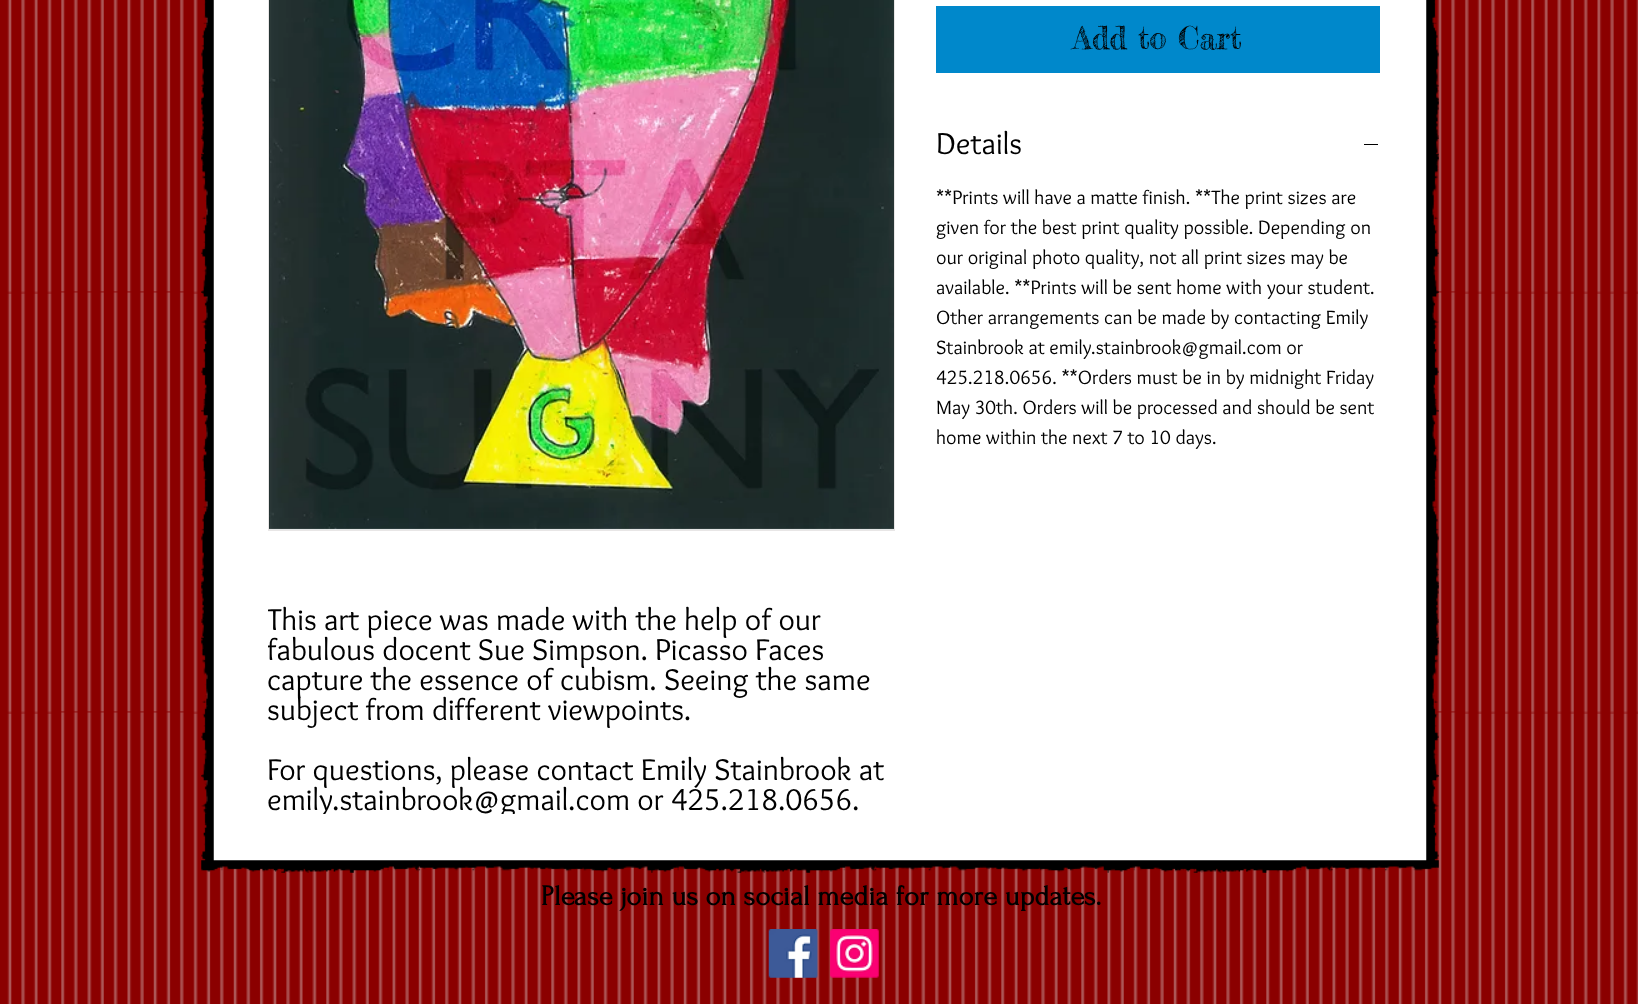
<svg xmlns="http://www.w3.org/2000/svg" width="1638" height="1004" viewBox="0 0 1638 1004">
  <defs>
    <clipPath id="clip1"><rect x="268" y="604" width="625" height="210"/></clipPath>
  </defs>
  <rect width="100%" height="100%" fill="#8b0000"/>
  <image x="7" y="0" width="1631" height="1004" href="img1.png"/>
  <rect x="213" y="0" width="1214" height="861" fill="#ffffff"/>
  <image x="201" y="860" width="1238" height="13" href="img2.png"/>
  <image x="201" y="0" width="13" height="861" href="img3.png"/>
  <image x="1426" y="0" width="13" height="861" href="img4.png"/>
  <rect x="936" y="6" width="444" height="67" fill="#0088cb"/>
  <text x="1073" y="49" font-family="Fredericka the Great" font-size="31.25" fill="#000000">Add to Cart</text>
  <text x="936" y="154" font-family="Overlock" font-size="31.25" fill="#000000">Details</text>
  <rect x="1364" y="144" width="14" height="1" fill="#000000"/>
  <text x="936" y="204" font-family="Overlock" font-size="20" fill="#000000">**Prints will have a matte finish. **The print sizes are</text>
  <text x="936" y="234" font-family="Overlock" font-size="20" fill="#000000">given for the best print quality possible. Depending on</text>
  <text x="936" y="264" font-family="Overlock" font-size="20" fill="#000000">our original photo quality, not all print sizes may be</text>
  <text x="936" y="294" font-family="Overlock" font-size="20" fill="#000000">available. **Prints will be sent home with your student.</text>
  <text x="936" y="324" font-family="Overlock" font-size="20" fill="#000000">Other arrangements can be made by contacting Emily</text>
  <text x="936" y="354" font-family="Overlock" font-size="20" fill="#000000">Stainbrook at emily.stainbrook@gmail.com or</text>
  <text x="936" y="384" font-family="Overlock" font-size="20" fill="#000000">425.218.0656. **Orders must be in by midnight Friday</text>
  <text x="936" y="414" font-family="Overlock" font-size="20" fill="#000000">May 30th. Orders will be processed and should be sent</text>
  <text x="936" y="444" font-family="Overlock" font-size="20" fill="#000000">home within the next 7 to 10 days.</text>
  <rect x="268.5" y="-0.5" width="626" height="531" fill="none" stroke="#e8e6e6"/>
  <image x="269" y="0" width="625" height="530" href="img5.png"/>
  <g clip-path="url(#clip1)">
    <text x="267" y="630" font-family="Overlock" font-size="31.25" fill="#000000">This art piece was made with the help of our</text>
    <text x="267" y="660" font-family="Overlock" font-size="31.25" fill="#000000">fabulous docent Sue Simpson. Picasso Faces</text>
  </g>
  <text x="267" y="690" font-family="Overlock" font-size="31.25" fill="#000000">capture the essence of cubism. Seeing the same</text>
  <text x="267" y="720" font-family="Overlock" font-size="31.25" fill="#000000">subject from different viewpoints.</text>
  <text x="267" y="780" font-family="Overlock" font-size="31.25" fill="#000000">For questions, please contact Emily Stainbrook at</text>
  <g clip-path="url(#clip1)">
    <text x="267" y="810" font-family="Overlock" font-size="31.25" fill="#000000">emily.stainbrook@gmail.com or 425.218.0656.</text>
  </g>
  <text x="541" y="905" font-family="Forum" font-size="28.75" font-weight="bold" fill="#000000">Please join us on social media for more updates.</text>
  <image x="768" y="929" width="50" height="49" href="img6.png"/>
  <image x="830" y="929" width="49" height="49" href="img7.png"/>
</svg>
